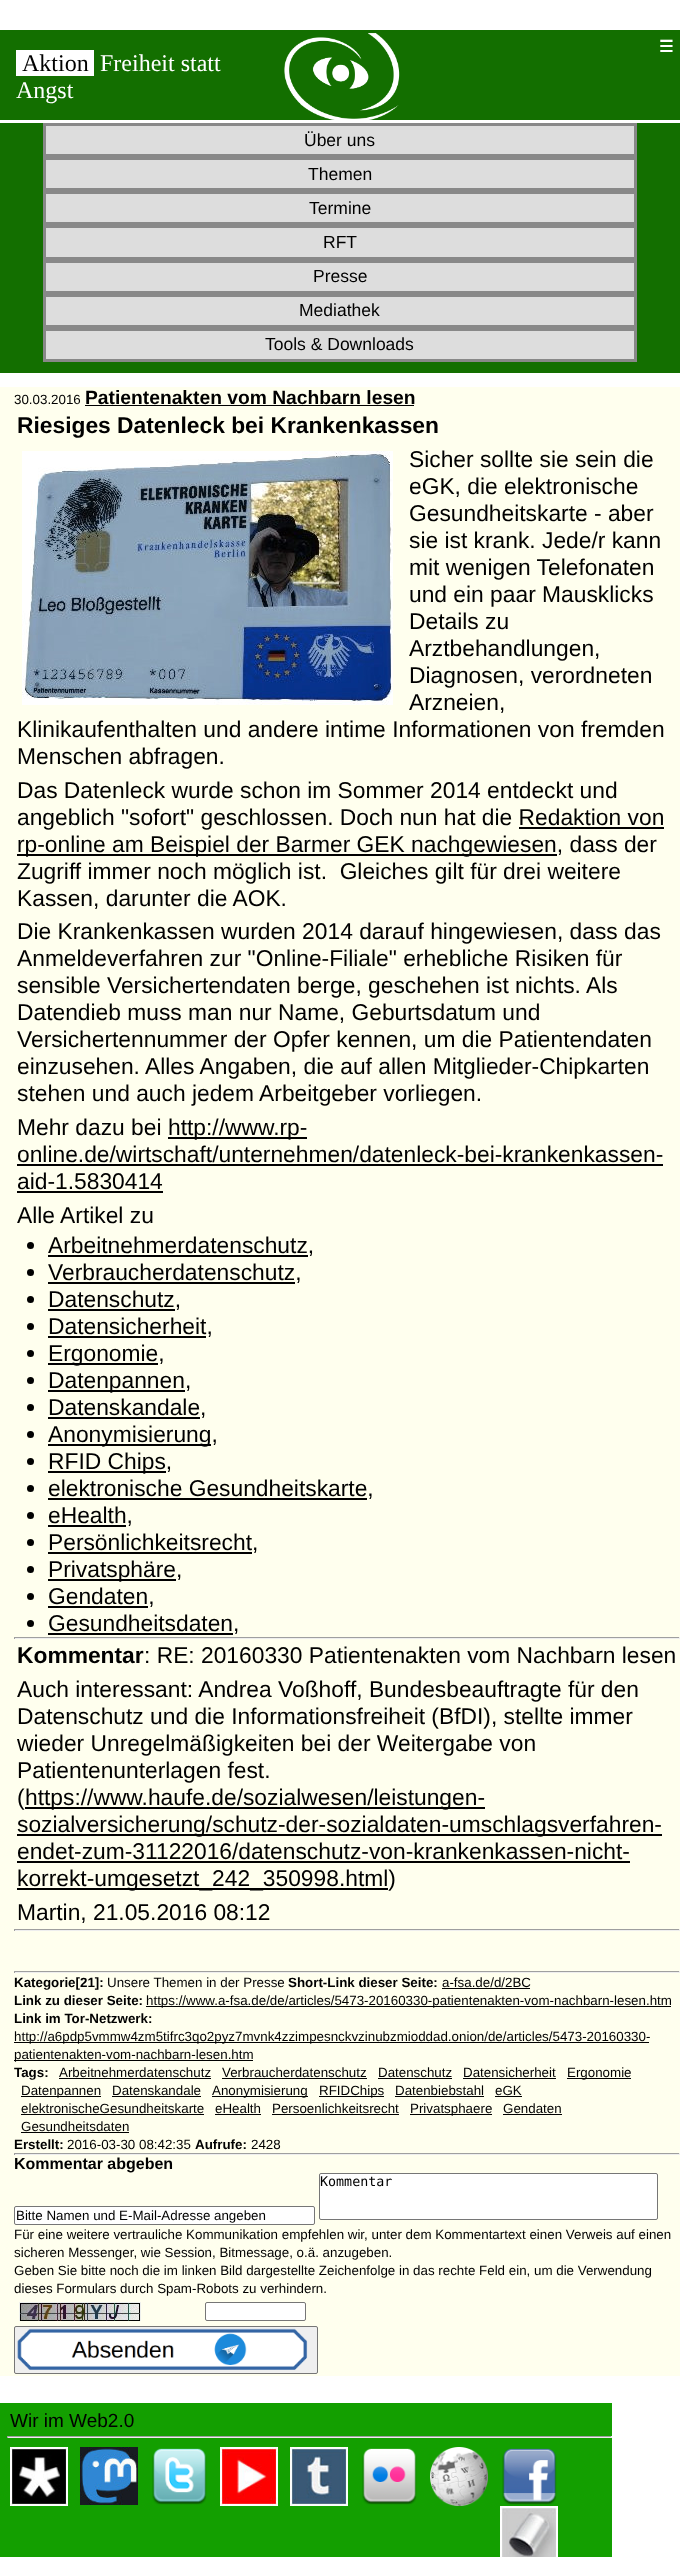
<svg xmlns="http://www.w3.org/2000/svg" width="680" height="2557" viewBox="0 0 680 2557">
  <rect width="100%" height="100%" fill="#ffffff"/>
  <rect x="0" y="30" width="680" height="90" fill="#136f00"/>
  <image x="284" y="33" width="116" height="87" href="img1.png"/>
  <text x="659" y="52" font-family="DejaVu Sans" font-size="16" font-weight="bold" fill="#ffffff">☰</text>
  <rect x="16" y="50" width="78" height="26" fill="#ffffff"/>
  <text x="22" y="71" font-family="Liberation Serif" font-size="24" fill="#000000">Aktion</text>
  <text x="100" y="71" font-family="Liberation Serif" font-size="24" fill="#ffffff">Freiheit statt</text>
  <text x="16" y="98" font-family="Liberation Serif" font-size="24" fill="#ffffff">Angst</text>
  <rect x="0" y="123" width="680" height="250" fill="#136f00"/>
  <rect x="44.5" y="124.5" width="591" height="31" fill="#dddddd" stroke="#888888" stroke-width="3"/>
  <text x="304" y="146" font-family="Liberation Sans" font-size="17.5" fill="#000000">Über uns</text>
  <rect x="44.5" y="158.5" width="591" height="31" fill="#dddddd" stroke="#888888" stroke-width="3"/>
  <text x="308" y="180" font-family="Liberation Sans" font-size="17.5" fill="#000000">Themen</text>
  <rect x="44.5" y="192.5" width="591" height="31" fill="#dddddd" stroke="#888888" stroke-width="3"/>
  <text x="309" y="214" font-family="Liberation Sans" font-size="17.5" fill="#000000">Termine</text>
  <rect x="44.5" y="226.5" width="591" height="32" fill="#dddddd" stroke="#888888" stroke-width="3"/>
  <text x="323" y="248" font-family="Liberation Sans" font-size="17.5" fill="#000000">RFT</text>
  <rect x="44.5" y="261.5" width="591" height="31" fill="#dddddd" stroke="#888888" stroke-width="3"/>
  <text x="313" y="282" font-family="Liberation Sans" font-size="17.5" fill="#000000">Presse</text>
  <rect x="44.5" y="295.5" width="591" height="31" fill="#dddddd" stroke="#888888" stroke-width="3"/>
  <text x="299" y="316" font-family="Liberation Sans" font-size="17.5" fill="#000000">Mediathek</text>
  <rect x="44.5" y="329.5" width="591" height="31" fill="#dddddd" stroke="#888888" stroke-width="3"/>
  <text x="265" y="350" font-family="Liberation Sans" font-size="17.5" fill="#000000">Tools &amp; Downloads</text>
  <rect x="0" y="387" width="680" height="1989" fill="#ffffee"/>
  <text x="14" y="404" font-family="Liberation Sans" font-size="13.35" fill="#000000">30.03.2016</text>
  <text x="85" y="404" font-family="Liberation Sans" font-size="19.25" font-weight="bold" fill="#000000">Patientenakten vom Nachbarn lesen</text>
  <rect x="85" y="405" width="329" height="1" fill="#000000"/>
  <text x="17" y="433" font-family="Liberation Sans" font-size="22.8" font-weight="bold" fill="#000000">Riesiges Datenleck bei Krankenkassen</text>
  <image x="22" y="451" width="371" height="254" href="img2.png"/>
  <text x="409" y="467" font-family="Liberation Sans" font-size="22.8" fill="#000000">Sicher sollte sie sein die</text>
  <text x="409" y="494" font-family="Liberation Sans" font-size="22.8" fill="#000000">eGK, die elektronische</text>
  <text x="409" y="521" font-family="Liberation Sans" font-size="22.8" fill="#000000">Gesundheitskarte - aber</text>
  <text x="409" y="548" font-family="Liberation Sans" font-size="22.8" fill="#000000">sie ist krank. Jede/r kann</text>
  <text x="409" y="575" font-family="Liberation Sans" font-size="22.8" fill="#000000">mit wenigen Telefonaten</text>
  <text x="409" y="602" font-family="Liberation Sans" font-size="22.8" fill="#000000">und ein paar Mausklicks</text>
  <text x="409" y="629" font-family="Liberation Sans" font-size="22.8" fill="#000000">Details zu</text>
  <text x="409" y="656" font-family="Liberation Sans" font-size="22.8" fill="#000000">Arztbehandlungen,</text>
  <text x="409" y="683" font-family="Liberation Sans" font-size="22.8" fill="#000000">Diagnosen, verordneten</text>
  <text x="409" y="710" font-family="Liberation Sans" font-size="22.8" fill="#000000">Arzneien,</text>
  <text x="17" y="737" font-family="Liberation Sans" font-size="22.8" fill="#000000">Klinikaufenthalten und andere intime Informationen von fremden</text>
  <text x="17" y="764" font-family="Liberation Sans" font-size="22.8" fill="#000000">Menschen abfragen.</text>
  <text x="17" y="798" font-family="Liberation Sans" font-size="22.8" fill="#000000">Das Datenleck wurde schon im Sommer 2014 entdeckt und</text>
  <text x="17" y="825" font-family="Liberation Sans" font-size="22.8" fill="#000000">angeblich "sofort" geschlossen. Doch nun hat die Redaktion von</text>
  <rect x="17" y="854" width="540" height="2" fill="#000000"/>
  <text x="17" y="852" font-family="Liberation Sans" font-size="22.8" fill="#000000">rp-online am Beispiel der Barmer GEK nachgewiesen, dass der</text>
  <rect x="519" y="827" width="145" height="2" fill="#000000"/>
  <text x="17" y="879" font-family="Liberation Sans" font-size="22.8" fill="#000000" xml:space="preserve">Zugriff immer noch möglich ist.  Gleiches gilt für drei weitere</text>
  <text x="17" y="906" font-family="Liberation Sans" font-size="22.8" fill="#000000">Kassen, darunter die AOK.</text>
  <text x="17" y="939" font-family="Liberation Sans" font-size="22.8" fill="#000000">Die Krankenkassen wurden 2014 darauf hingewiesen, dass das</text>
  <text x="17" y="966" font-family="Liberation Sans" font-size="22.8" fill="#000000">Anmeldeverfahren zur "Online-Filiale" erhebliche Risiken für</text>
  <text x="17" y="993" font-family="Liberation Sans" font-size="22.8" fill="#000000">sensible Versichertendaten berge, geschehen ist nichts. Als</text>
  <text x="17" y="1020" font-family="Liberation Sans" font-size="22.8" fill="#000000">Datendieb muss man nur Name, Geburtsdatum und</text>
  <text x="17" y="1047" font-family="Liberation Sans" font-size="22.8" fill="#000000">Versichertennummer der Opfer kennen, um die Patientendaten</text>
  <text x="17" y="1074" font-family="Liberation Sans" font-size="22.8" fill="#000000">einzusehen. Alles Angaben, die auf allen Mitglieder-Chipkarten</text>
  <text x="17" y="1101" font-family="Liberation Sans" font-size="22.8" fill="#000000">stehen und auch jedem Arbeitgeber vorliegen.</text>
  <text x="17" y="1135" font-family="Liberation Sans" font-size="22.8" fill="#000000">Mehr dazu bei</text>
  <rect x="168" y="1137" width="139" height="2" fill="#000000"/>
  <text x="168" y="1135" font-family="Liberation Sans" font-size="22.8" fill="#000000">http://www.rp-</text>
  <text x="17" y="1162" font-family="Liberation Sans" font-size="22.8" fill="#000000">online.de/wirtschaft/unternehmen/datenleck-bei-krankenkassen-</text>
  <rect x="17" y="1164" width="646" height="2" fill="#000000"/>
  <text x="17" y="1189" font-family="Liberation Sans" font-size="22.8" fill="#000000">aid-1.5830414</text>
  <rect x="17" y="1191" width="146" height="2" fill="#000000"/>
  <text x="17" y="1223" font-family="Liberation Sans" font-size="22.8" fill="#000000">Alle Artikel zu</text>
  <circle cx="30.5" cy="1245.5" r="3.5" fill="#000000"/>
  <rect x="48" y="1255" width="260" height="2" fill="#000000"/>
  <text x="48" y="1253" font-family="Liberation Sans" font-size="22.8" fill="#000000">Arbeitnehmerdatenschutz,</text>
  <circle cx="30.5" cy="1272.5" r="3.5" fill="#000000"/>
  <rect x="48" y="1282" width="247" height="2" fill="#000000"/>
  <text x="48" y="1280" font-family="Liberation Sans" font-size="22.8" fill="#000000">Verbraucherdatenschutz,</text>
  <circle cx="30.5" cy="1299.5" r="3.5" fill="#000000"/>
  <rect x="48" y="1309" width="127" height="2" fill="#000000"/>
  <text x="48" y="1307" font-family="Liberation Sans" font-size="22.8" fill="#000000">Datenschutz,</text>
  <circle cx="30.5" cy="1326.5" r="3.5" fill="#000000"/>
  <rect x="48" y="1336" width="158" height="2" fill="#000000"/>
  <text x="48" y="1334" font-family="Liberation Sans" font-size="22.8" fill="#000000">Datensicherheit,</text>
  <circle cx="30.5" cy="1353.5" r="3.5" fill="#000000"/>
  <rect x="48" y="1363" width="110" height="2" fill="#000000"/>
  <text x="48" y="1361" font-family="Liberation Sans" font-size="22.8" fill="#000000">Ergonomie,</text>
  <circle cx="30.5" cy="1380.5" r="3.5" fill="#000000"/>
  <rect x="48" y="1390" width="137" height="2" fill="#000000"/>
  <text x="48" y="1388" font-family="Liberation Sans" font-size="22.8" fill="#000000">Datenpannen,</text>
  <circle cx="30.5" cy="1407.5" r="3.5" fill="#000000"/>
  <rect x="48" y="1417" width="152" height="2" fill="#000000"/>
  <text x="48" y="1415" font-family="Liberation Sans" font-size="22.8" fill="#000000">Datenskandale,</text>
  <circle cx="30.5" cy="1434.5" r="3.5" fill="#000000"/>
  <rect x="48" y="1444" width="163" height="2" fill="#000000"/>
  <text x="48" y="1442" font-family="Liberation Sans" font-size="22.8" fill="#000000">Anonymisierung,</text>
  <circle cx="30.5" cy="1461.5" r="3.5" fill="#000000"/>
  <rect x="48" y="1471" width="118" height="2" fill="#000000"/>
  <text x="48" y="1469" font-family="Liberation Sans" font-size="22.8" fill="#000000">RFID Chips,</text>
  <circle cx="30.5" cy="1488.5" r="3.5" fill="#000000"/>
  <rect x="48" y="1498" width="319" height="2" fill="#000000"/>
  <text x="48" y="1496" font-family="Liberation Sans" font-size="22.8" fill="#000000">elektronische Gesundheitskarte,</text>
  <circle cx="30.5" cy="1515.5" r="3.5" fill="#000000"/>
  <rect x="48" y="1525" width="78" height="2" fill="#000000"/>
  <text x="48" y="1523" font-family="Liberation Sans" font-size="22.8" fill="#000000">eHealth,</text>
  <circle cx="30.5" cy="1542.5" r="3.5" fill="#000000"/>
  <rect x="48" y="1552" width="204" height="2" fill="#000000"/>
  <text x="48" y="1550" font-family="Liberation Sans" font-size="22.8" fill="#000000">Persönlichkeitsrecht,</text>
  <circle cx="30.5" cy="1569.5" r="3.5" fill="#000000"/>
  <rect x="48" y="1579" width="128" height="2" fill="#000000"/>
  <text x="48" y="1577" font-family="Liberation Sans" font-size="22.8" fill="#000000">Privatsphäre,</text>
  <circle cx="30.5" cy="1596.5" r="3.5" fill="#000000"/>
  <rect x="48" y="1606" width="100" height="2" fill="#000000"/>
  <text x="48" y="1604" font-family="Liberation Sans" font-size="22.8" fill="#000000">Gendaten,</text>
  <circle cx="30.5" cy="1623.5" r="3.5" fill="#000000"/>
  <rect x="48" y="1633" width="185" height="2" fill="#000000"/>
  <text x="48" y="1631" font-family="Liberation Sans" font-size="22.8" fill="#000000">Gesundheitsdaten,</text>
  <rect x="14" y="1637" width="666" height="1" fill="#9f9f9f"/>
  <rect x="679" y="1637" width="1" height="2" fill="#eeeeee"/>
  <rect x="14" y="1638" width="666" height="1" fill="#eeeeee"/>
  <rect x="14" y="1637" width="1" height="2" fill="#9f9f9f"/>
  <text x="17" y="1663" font-family="Liberation Sans" font-size="22.8" font-weight="bold" fill="#000000">Kommentar</text>
  <text x="144" y="1663" font-family="Liberation Sans" font-size="22.8" fill="#000000">: RE: 20160330 Patientenakten vom Nachbarn lesen</text>
  <text x="17" y="1697" font-family="Liberation Sans" font-size="22.8" fill="#000000">Auch interessant: Andrea Voßhoff, Bundesbeauftragte für den</text>
  <text x="17" y="1724" font-family="Liberation Sans" font-size="22.8" fill="#000000">Datenschutz und die Informationsfreiheit (BfDI), stellte immer</text>
  <text x="17" y="1751" font-family="Liberation Sans" font-size="22.8" fill="#000000">wieder Unregelmäßigkeiten bei der Weitergabe von</text>
  <text x="17" y="1778" font-family="Liberation Sans" font-size="22.8" fill="#000000">Patientenunterlagen fest.</text>
  <text x="17" y="1805" font-family="Liberation Sans" font-size="22.8" fill="#000000">(</text>
  <rect x="25" y="1807" width="460" height="2" fill="#000000"/>
  <text x="25" y="1805" font-family="Liberation Sans" font-size="22.8" fill="#000000">https://www.haufe.de/sozialwesen/leistungen-</text>
  <rect x="17" y="1834" width="645" height="2" fill="#000000"/>
  <text x="17" y="1832" font-family="Liberation Sans" font-size="22.8" fill="#000000">sozialversicherung/schutz-der-sozialdaten-umschlagsverfahren-</text>
  <text x="17" y="1859" font-family="Liberation Sans" font-size="22.8" fill="#000000">endet-zum-31122016/datenschutz-von-krankenkassen-nicht-</text>
  <rect x="17" y="1861" width="613" height="2" fill="#000000"/>
  <rect x="17" y="1888" width="371" height="2" fill="#000000"/>
  <text x="17" y="1886" font-family="Liberation Sans" font-size="22.8" fill="#000000">korrekt-umgesetzt_242_350998.html)</text>
  <text x="17" y="1920" font-family="Liberation Sans" font-size="22.8" fill="#000000">Martin, 21.05.2016 08:12</text>
  <rect x="14" y="1929" width="666" height="1" fill="#9f9f9f"/>
  <rect x="679" y="1929" width="1" height="2" fill="#eeeeee"/>
  <rect x="14" y="1930" width="666" height="1" fill="#eeeeee"/>
  <rect x="14" y="1929" width="1" height="2" fill="#9f9f9f"/>
  <rect x="14" y="1971" width="666" height="1" fill="#9f9f9f"/>
  <rect x="679" y="1971" width="1" height="2" fill="#eeeeee"/>
  <rect x="14" y="1972" width="666" height="1" fill="#eeeeee"/>
  <rect x="14" y="1971" width="1" height="2" fill="#9f9f9f"/>
  <text x="14" y="1987" font-family="Liberation Sans" font-size="13.35" font-weight="bold" fill="#000000">Kategorie[21]:</text>
  <text x="107" y="1987" font-family="Liberation Sans" font-size="13.35" fill="#000000">Unsere Themen in der Presse</text>
  <text x="288" y="1987" font-family="Liberation Sans" font-size="13.35" font-weight="bold" fill="#000000">Short-Link dieser Seite:</text>
  <text x="442" y="1987" font-family="Liberation Sans" font-size="13.35" fill="#000000">a-fsa.de/d/2BC</text>
  <rect x="442" y="1988" width="88" height="1" fill="#000000"/>
  <text x="14" y="2005" font-family="Liberation Sans" font-size="13.35" font-weight="bold" fill="#000000">Link zu dieser Seite:</text>
  <rect x="146" y="2006" width="525" height="1" fill="#000000"/>
  <text x="146" y="2005" font-family="Liberation Sans" font-size="13.35" fill="#000000">https://www.a-fsa.de/de/articles/5473-20160330-patientenakten-vom-nachbarn-lesen.htm</text>
  <text x="14" y="2023" font-family="Liberation Sans" font-size="13.35" font-weight="bold" fill="#000000">Link im Tor-Netzwerk:</text>
  <rect x="14" y="2042" width="635" height="1" fill="#000000"/>
  <text x="14" y="2041" font-family="Liberation Sans" font-size="13.35" fill="#000000">http://a6pdp5vmmw4zm5tifrc3qo2pyz7mvnk4zzimpesnckvzinubzmioddad.onion/de/articles/5473-20160330-</text>
  <rect x="14" y="2060" width="239" height="1" fill="#000000"/>
  <text x="14" y="2059" font-family="Liberation Sans" font-size="13.35" fill="#000000">patientenakten-vom-nachbarn-lesen.htm</text>
  <text x="14" y="2077" font-family="Liberation Sans" font-size="13.35" font-weight="bold" fill="#000000">Tags:</text>
  <text x="59" y="2077" font-family="Liberation Sans" font-size="13.35" fill="#000000">Arbeitnehmerdatenschutz</text>
  <rect x="59" y="2078" width="152" height="1" fill="#000000"/>
  <text x="222" y="2077" font-family="Liberation Sans" font-size="13.35" fill="#000000">Verbraucherdatenschutz</text>
  <rect x="222" y="2078" width="145" height="1" fill="#000000"/>
  <text x="378" y="2077" font-family="Liberation Sans" font-size="13.35" fill="#000000">Datenschutz</text>
  <rect x="378" y="2078" width="74" height="1" fill="#000000"/>
  <text x="463" y="2077" font-family="Liberation Sans" font-size="13.35" fill="#000000">Datensicherheit</text>
  <rect x="463" y="2078" width="93" height="1" fill="#000000"/>
  <rect x="567" y="2078" width="64" height="1" fill="#000000"/>
  <text x="567" y="2077" font-family="Liberation Sans" font-size="13.35" fill="#000000">Ergonomie</text>
  <rect x="21" y="2096" width="80" height="1" fill="#000000"/>
  <text x="21" y="2095" font-family="Liberation Sans" font-size="13.35" fill="#000000">Datenpannen</text>
  <text x="112" y="2095" font-family="Liberation Sans" font-size="13.35" fill="#000000">Datenskandale</text>
  <rect x="112" y="2096" width="89" height="1" fill="#000000"/>
  <rect x="212" y="2096" width="96" height="1" fill="#000000"/>
  <text x="212" y="2095" font-family="Liberation Sans" font-size="13.35" fill="#000000">Anonymisierung</text>
  <rect x="319" y="2096" width="65" height="1" fill="#000000"/>
  <text x="319" y="2095" font-family="Liberation Sans" font-size="13.35" fill="#000000">RFIDChips</text>
  <text x="395" y="2095" font-family="Liberation Sans" font-size="13.35" fill="#000000">Datenbiebstahl</text>
  <rect x="395" y="2096" width="89" height="1" fill="#000000"/>
  <text x="495" y="2095" font-family="Liberation Sans" font-size="13.35" fill="#000000">eGK</text>
  <rect x="495" y="2096" width="27" height="1" fill="#000000"/>
  <text x="21" y="2113" font-family="Liberation Sans" font-size="13.35" fill="#000000">elektronischeGesundheitskarte</text>
  <rect x="21" y="2114" width="183" height="1" fill="#000000"/>
  <text x="215" y="2113" font-family="Liberation Sans" font-size="13.35" fill="#000000">eHealth</text>
  <rect x="215" y="2114" width="46" height="1" fill="#000000"/>
  <text x="272" y="2113" font-family="Liberation Sans" font-size="13.35" fill="#000000">Persoenlichkeitsrecht</text>
  <rect x="272" y="2114" width="127" height="1" fill="#000000"/>
  <rect x="410" y="2114" width="82" height="1" fill="#000000"/>
  <text x="410" y="2113" font-family="Liberation Sans" font-size="13.35" fill="#000000">Privatsphaere</text>
  <text x="503" y="2113" font-family="Liberation Sans" font-size="13.35" fill="#000000">Gendaten</text>
  <rect x="503" y="2114" width="59" height="1" fill="#000000"/>
  <text x="21" y="2131" font-family="Liberation Sans" font-size="13.35" fill="#000000">Gesundheitsdaten</text>
  <rect x="21" y="2132" width="108" height="1" fill="#000000"/>
  <text x="14" y="2149" font-family="Liberation Sans" font-size="13.35" font-weight="bold" fill="#000000">Erstellt:</text>
  <text x="67" y="2149" font-family="Liberation Sans" font-size="13.35" fill="#000000">2016-03-30 08:42:35</text>
  <text x="195" y="2149" font-family="Liberation Sans" font-size="13.35" font-weight="bold" fill="#000000">Aufrufe:</text>
  <text x="251" y="2149" font-family="Liberation Sans" font-size="13.35" fill="#000000">2428</text>
  <rect x="14" y="2153" width="666" height="1" fill="#9f9f9f"/>
  <rect x="679" y="2153" width="1" height="2" fill="#eeeeee"/>
  <rect x="14" y="2154" width="666" height="1" fill="#eeeeee"/>
  <rect x="14" y="2153" width="1" height="2" fill="#9f9f9f"/>
  <text x="14" y="2169" font-family="Liberation Sans" font-size="16" font-weight="bold" fill="#000000">Kommentar abgeben</text>
  <rect x="319.5" y="2173.5" width="338" height="46" rx="1.5" fill="#ffffff" stroke="#767676"/>
  <text x="320" y="2186" font-family="DejaVu Sans Mono" font-size="13.35" fill="#000000">Kommentar</text>
  <rect x="14.5" y="2206.5" width="300" height="18" rx="1.5" fill="#ffffff" stroke="#767676"/>
  <text x="16" y="2220" font-family="Liberation Sans" font-size="13.35" fill="#000000">Bitte Namen und E-Mail-Adresse angeben</text>
  <text x="14" y="2239" font-family="Liberation Sans" font-size="13.35" fill="#000000">Für eine weitere vertrauliche Kommunikation empfehlen wir, unter dem Kommentartext einen Verweis auf einen</text>
  <text x="14" y="2257" font-family="Liberation Sans" font-size="13.35" fill="#000000">sicheren Messenger, wie Session, Bitmessage, o.ä. anzugeben.</text>
  <text x="14" y="2275" font-family="Liberation Sans" font-size="13.35" fill="#000000">Geben Sie bitte noch die im linken Bild dargestellte Zeichenfolge in das rechte Feld ein, um die Verwendung</text>
  <text x="14" y="2293" font-family="Liberation Sans" font-size="13.35" fill="#000000">dieses Formulars durch Spam-Robots zu verhindern.</text>
  <image x="19" y="2302" width="122" height="19" href="img3.png"/>
  <rect x="205.5" y="2302.5" width="100" height="18" rx="1.5" fill="#ffffff" stroke="#767676"/>
  <rect x="14.5" y="2326.5" width="303" height="47" rx="1.5" fill="#efefef" stroke="#767676"/>
  <image x="17" y="2328" width="291" height="42" href="img4.png"/>
  <rect x="0" y="2403" width="612" height="154" fill="#139f00"/>
  <text x="10" y="2427" font-family="Liberation Sans" font-size="19" fill="#000000">Wir im Web2.0</text>
  <rect x="7" y="2436" width="605" height="1" fill="#9f9f9f"/>
  <rect x="611" y="2436" width="1" height="2" fill="#eeeeee"/>
  <rect x="7" y="2437" width="605" height="1" fill="#eeeeee"/>
  <rect x="7" y="2436" width="1" height="2" fill="#9f9f9f"/>
  <image x="10" y="2447" width="58" height="59" href="img5.png"/>
  <image x="80" y="2447" width="58" height="58" href="img6.png"/>
  <image x="152" y="2448" width="55" height="57" href="img7.png"/>
  <image x="220" y="2447" width="58" height="59" href="img8.png"/>
  <image x="290" y="2447" width="58" height="59" href="img9.png"/>
  <image x="362" y="2448" width="55" height="57" href="img10.png"/>
  <image x="430" y="2447" width="58" height="59" href="img11.png"/>
  <image x="502" y="2448" width="55" height="57" href="img12.png"/>
  <image x="500" y="2506" width="58" height="51" href="img13.png"/>
</svg>
